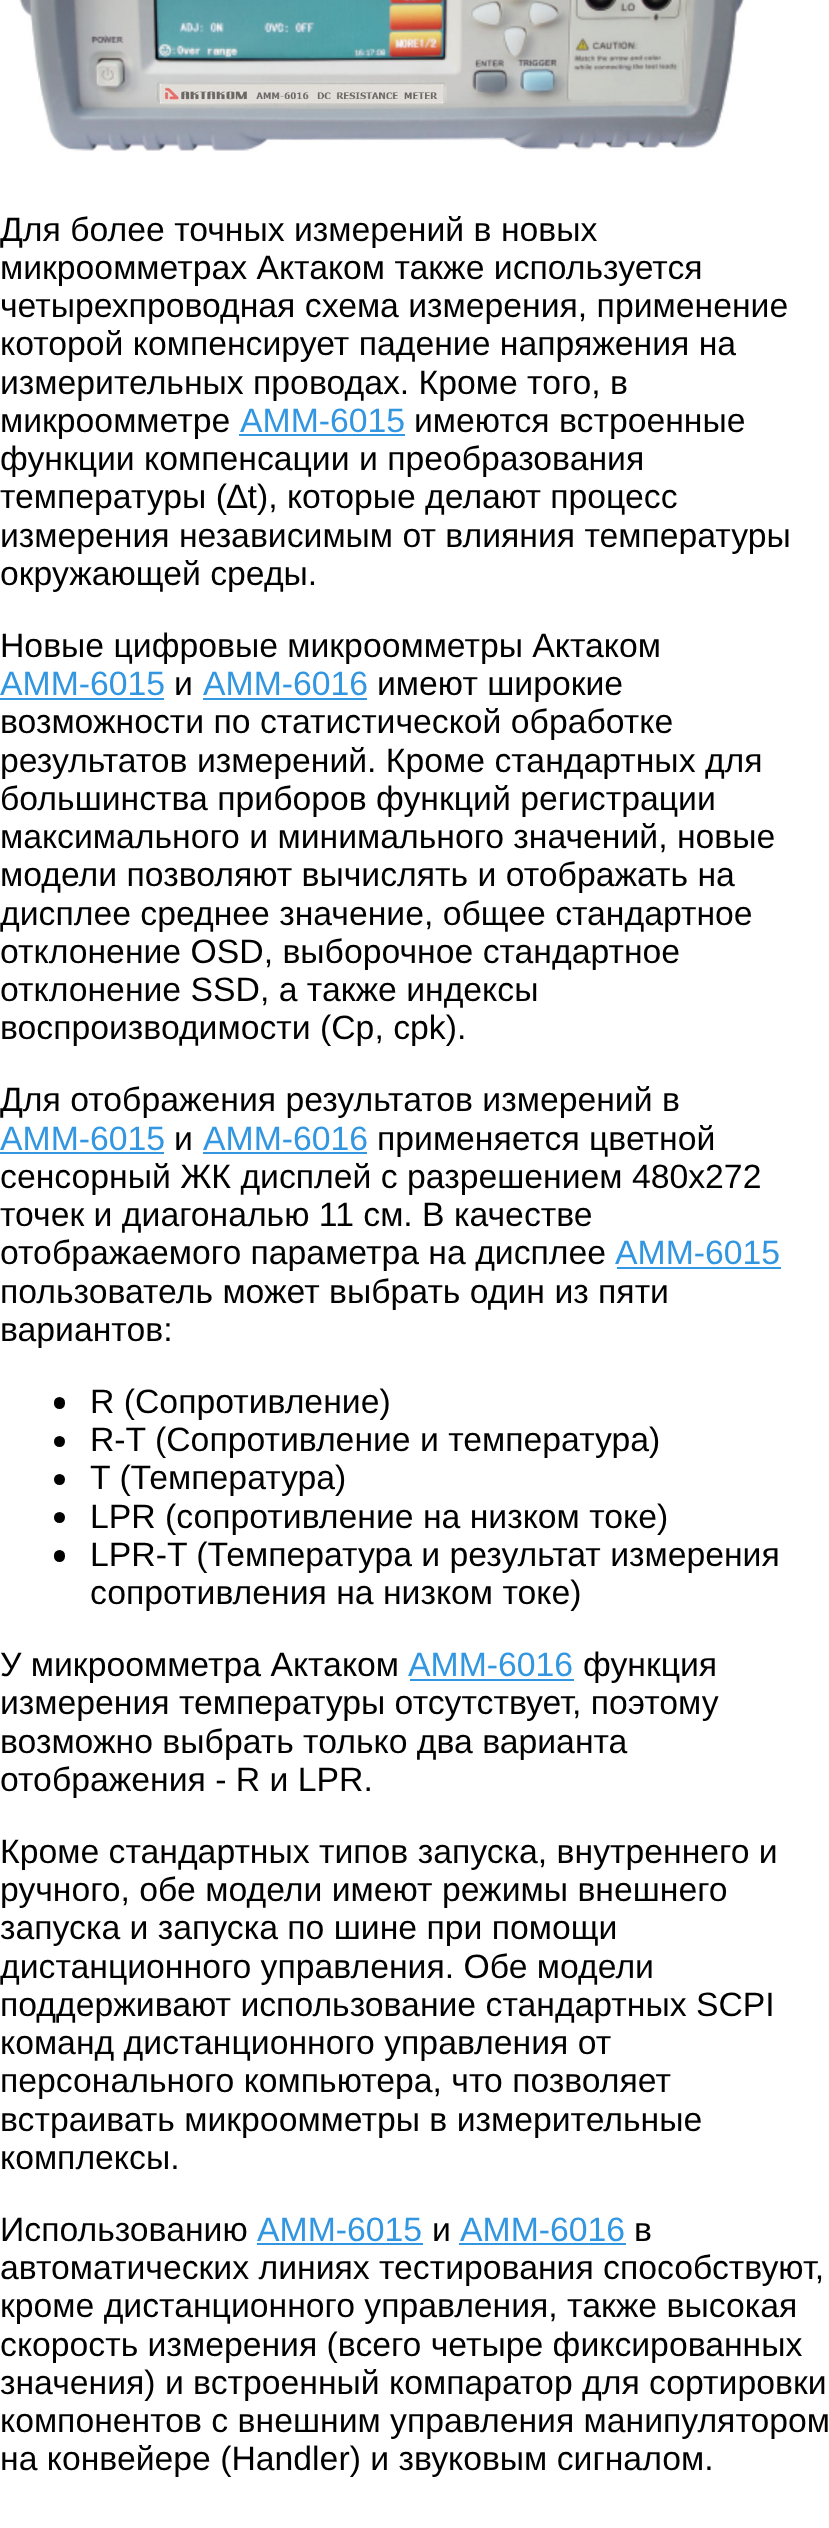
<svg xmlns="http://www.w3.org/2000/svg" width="829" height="2528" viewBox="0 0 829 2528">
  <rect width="100%" height="100%" fill="#ffffff"/>
  <image x="19" y="0" width="726" height="152" href="img1.png"/>
  <text x="0" y="241" font-family="Liberation Sans" font-size="33.75" fill="#000000">Для более точных измерений в новых</text>
  <text x="0" y="279" font-family="Liberation Sans" font-size="33.75" fill="#000000">микроомметрах Актаком также используется</text>
  <text x="0" y="317" font-family="Liberation Sans" font-size="33.75" fill="#000000">четырехпроводная схема измерения, применение</text>
  <text x="0" y="355" font-family="Liberation Sans" font-size="33.75" fill="#000000">которой компенсирует падение напряжения на</text>
  <text x="0" y="394" font-family="Liberation Sans" font-size="33.75" fill="#000000">измерительных проводах. Кроме того, в</text>
  <text x="0" y="432" font-family="Liberation Sans" font-size="33.75" fill="#000000">микроомметре</text>
  <text x="240" y="432" font-family="Liberation Sans" font-size="33.75" fill="#3296e1">АММ-6015</text>
  <rect x="239" y="434" width="166" height="2" fill="#3296e1"/>
  <text x="414" y="432" font-family="Liberation Sans" font-size="33.75" fill="#000000">имеются встроенные</text>
  <text x="0" y="470" font-family="Liberation Sans" font-size="33.75" fill="#000000">функции компенсации и преобразования</text>
  <text x="0" y="508" font-family="Liberation Sans" font-size="33.75" fill="#000000">температуры (∆t), которые делают процесс</text>
  <text x="0" y="547" font-family="Liberation Sans" font-size="33.75" fill="#000000">измерения независимым от влияния температуры</text>
  <text x="0" y="585" font-family="Liberation Sans" font-size="33.75" fill="#000000">окружающей среды.</text>
  <text x="0" y="657" font-family="Liberation Sans" font-size="33.75" fill="#000000">Новые цифровые микроомметры Актаком</text>
  <text x="0" y="695" font-family="Liberation Sans" font-size="33.75" fill="#3296e1">АММ-6015</text>
  <rect x="0" y="698" width="164" height="2" fill="#3296e1"/>
  <text x="174" y="695" font-family="Liberation Sans" font-size="33.75" fill="#000000">и</text>
  <text x="203" y="695" font-family="Liberation Sans" font-size="33.75" fill="#3296e1">АММ-6016</text>
  <rect x="203" y="698" width="164" height="2" fill="#3296e1"/>
  <text x="377" y="695" font-family="Liberation Sans" font-size="33.75" fill="#000000">имеют широкие</text>
  <text x="0" y="733" font-family="Liberation Sans" font-size="33.75" fill="#000000">возможности по статистической обработке</text>
  <text x="0" y="772" font-family="Liberation Sans" font-size="33.75" fill="#000000">результатов измерений. Кроме стандартных для</text>
  <text x="0" y="810" font-family="Liberation Sans" font-size="33.75" fill="#000000">большинства приборов функций регистрации</text>
  <text x="0" y="848" font-family="Liberation Sans" font-size="33.75" fill="#000000">максимального и минимального значений, новые</text>
  <text x="0" y="886" font-family="Liberation Sans" font-size="33.75" fill="#000000">модели позволяют вычислять и отображать на</text>
  <text x="0" y="925" font-family="Liberation Sans" font-size="33.75" fill="#000000">дисплее среднее значение, общее стандартное</text>
  <text x="0" y="963" font-family="Liberation Sans" font-size="33.75" fill="#000000">отклонение OSD, выборочное стандартное</text>
  <text x="0" y="1001" font-family="Liberation Sans" font-size="33.75" fill="#000000">отклонение SSD, а также индексы</text>
  <text x="0" y="1039" font-family="Liberation Sans" font-size="33.75" fill="#000000">воспроизводимости (Cp, cpk).</text>
  <text x="0" y="1111" font-family="Liberation Sans" font-size="33.75" fill="#000000">Для отображения результатов измерений в</text>
  <text x="0" y="1150" font-family="Liberation Sans" font-size="33.75" fill="#3296e1">АММ-6015</text>
  <rect x="0" y="1152" width="164" height="2" fill="#3296e1"/>
  <text x="174" y="1150" font-family="Liberation Sans" font-size="33.75" fill="#000000">и</text>
  <text x="203" y="1150" font-family="Liberation Sans" font-size="33.75" fill="#3296e1">АММ-6016</text>
  <rect x="203" y="1152" width="164" height="2" fill="#3296e1"/>
  <text x="377" y="1150" font-family="Liberation Sans" font-size="33.75" fill="#000000">применяется цветной</text>
  <text x="0" y="1188" font-family="Liberation Sans" font-size="33.75" fill="#000000">сенсорный ЖК дисплей с разрешением 480x272</text>
  <text x="0" y="1226" font-family="Liberation Sans" font-size="33.75" fill="#000000">точек и диагональю 11 см. В качестве</text>
  <text x="0" y="1264" font-family="Liberation Sans" font-size="33.75" fill="#000000">отображаемого параметра на дисплее</text>
  <text x="615" y="1264" font-family="Liberation Sans" font-size="33.75" fill="#3296e1">АММ-6015</text>
  <rect x="617" y="1267" width="164" height="2" fill="#3296e1"/>
  <text x="0" y="1303" font-family="Liberation Sans" font-size="33.75" fill="#000000">пользователь может выбрать один из пяти</text>
  <text x="0" y="1341" font-family="Liberation Sans" font-size="33.75" fill="#000000">вариантов:</text>
  <rect x="54" y="1397" width="11" height="12" rx="5.5" fill="#000000"/>
  <text x="90" y="1413" font-family="Liberation Sans" font-size="33.75" fill="#000000">R (Сопротивление)</text>
  <circle cx="59.5" cy="1441.5" r="5.5" fill="#000000"/>
  <text x="90" y="1451" font-family="Liberation Sans" font-size="33.75" fill="#000000">R‐T (Сопротивление и температура)</text>
  <circle cx="59.5" cy="1479.5" r="5.5" fill="#000000"/>
  <text x="90" y="1489" font-family="Liberation Sans" font-size="33.75" fill="#000000">T (Температура)</text>
  <circle cx="59.5" cy="1517.5" r="5.5" fill="#000000"/>
  <text x="90" y="1528" font-family="Liberation Sans" font-size="33.75" fill="#000000">LPR (сопротивление на низком токе)</text>
  <rect x="54" y="1550" width="11" height="12" rx="5.5" fill="#000000"/>
  <text x="90" y="1566" font-family="Liberation Sans" font-size="33.75" fill="#000000">LPR‐T (Температура и результат измерения</text>
  <text x="90" y="1604" font-family="Liberation Sans" font-size="33.75" fill="#000000">сопротивления на низком токе)</text>
  <text x="0" y="1676" font-family="Liberation Sans" font-size="33.75" fill="#000000">У микроомметра Актаком</text>
  <text x="408" y="1676" font-family="Liberation Sans" font-size="33.75" fill="#3296e1">АММ-6016</text>
  <rect x="410" y="1679" width="164" height="2" fill="#3296e1"/>
  <text x="583" y="1676" font-family="Liberation Sans" font-size="33.75" fill="#000000">функция</text>
  <text x="0" y="1714" font-family="Liberation Sans" font-size="33.75" fill="#000000">измерения температуры отсутствует, поэтому</text>
  <text x="0" y="1753" font-family="Liberation Sans" font-size="33.75" fill="#000000">возможно выбрать только два варианта</text>
  <text x="0" y="1791" font-family="Liberation Sans" font-size="33.75" fill="#000000">отображения - R и LPR.</text>
  <text x="0" y="1863" font-family="Liberation Sans" font-size="33.75" fill="#000000">Кроме стандартных типов запуска, внутреннего и</text>
  <text x="0" y="1901" font-family="Liberation Sans" font-size="33.75" fill="#000000">ручного, обе модели имеют режимы внешнего</text>
  <text x="0" y="1939" font-family="Liberation Sans" font-size="33.75" fill="#000000">запуска и запуска по шине при помощи</text>
  <text x="0" y="1978" font-family="Liberation Sans" font-size="33.75" fill="#000000">дистанционного управления. Обе модели</text>
  <text x="0" y="2016" font-family="Liberation Sans" font-size="33.75" fill="#000000">поддерживают использование стандартных SCPI</text>
  <text x="0" y="2054" font-family="Liberation Sans" font-size="33.75" fill="#000000">команд дистанционного управления от</text>
  <text x="0" y="2092" font-family="Liberation Sans" font-size="33.75" fill="#000000">персонального компьютера, что позволяет</text>
  <text x="0" y="2131" font-family="Liberation Sans" font-size="33.75" fill="#000000">встраивать микроомметры в измерительные</text>
  <text x="0" y="2169" font-family="Liberation Sans" font-size="33.75" fill="#000000">комплексы.</text>
  <text x="0" y="2241" font-family="Liberation Sans" font-size="33.75" fill="#000000">Использованию</text>
  <text x="257" y="2241" font-family="Liberation Sans" font-size="33.75" fill="#3296e1">АММ-6015</text>
  <rect x="257" y="2243" width="166" height="2" fill="#3296e1"/>
  <text x="432" y="2241" font-family="Liberation Sans" font-size="33.75" fill="#000000">и</text>
  <text x="460" y="2241" font-family="Liberation Sans" font-size="33.75" fill="#3296e1">АММ-6016</text>
  <rect x="459" y="2243" width="167" height="2" fill="#3296e1"/>
  <text x="634" y="2241" font-family="Liberation Sans" font-size="33.75" fill="#000000">в</text>
  <text x="0" y="2279" font-family="Liberation Sans" font-size="33.75" fill="#000000">автоматических линиях тестирования способствуют,</text>
  <text x="0" y="2317" font-family="Liberation Sans" font-size="33.75" fill="#000000">кроме дистанционного управления, также высокая</text>
  <text x="0" y="2356" font-family="Liberation Sans" font-size="33.75" fill="#000000">скорость измерения (всего четыре фиксированных</text>
  <text x="0" y="2394" font-family="Liberation Sans" font-size="33.75" fill="#000000">значения) и встроенный компаратор для сортировки</text>
  <text x="0" y="2432" font-family="Liberation Sans" font-size="33.75" fill="#000000">компонентов с внешним управления манипулятором</text>
  <text x="0" y="2470" font-family="Liberation Sans" font-size="33.75" fill="#000000">на конвейере (Handler) и звуковым сигналом.</text>
</svg>
